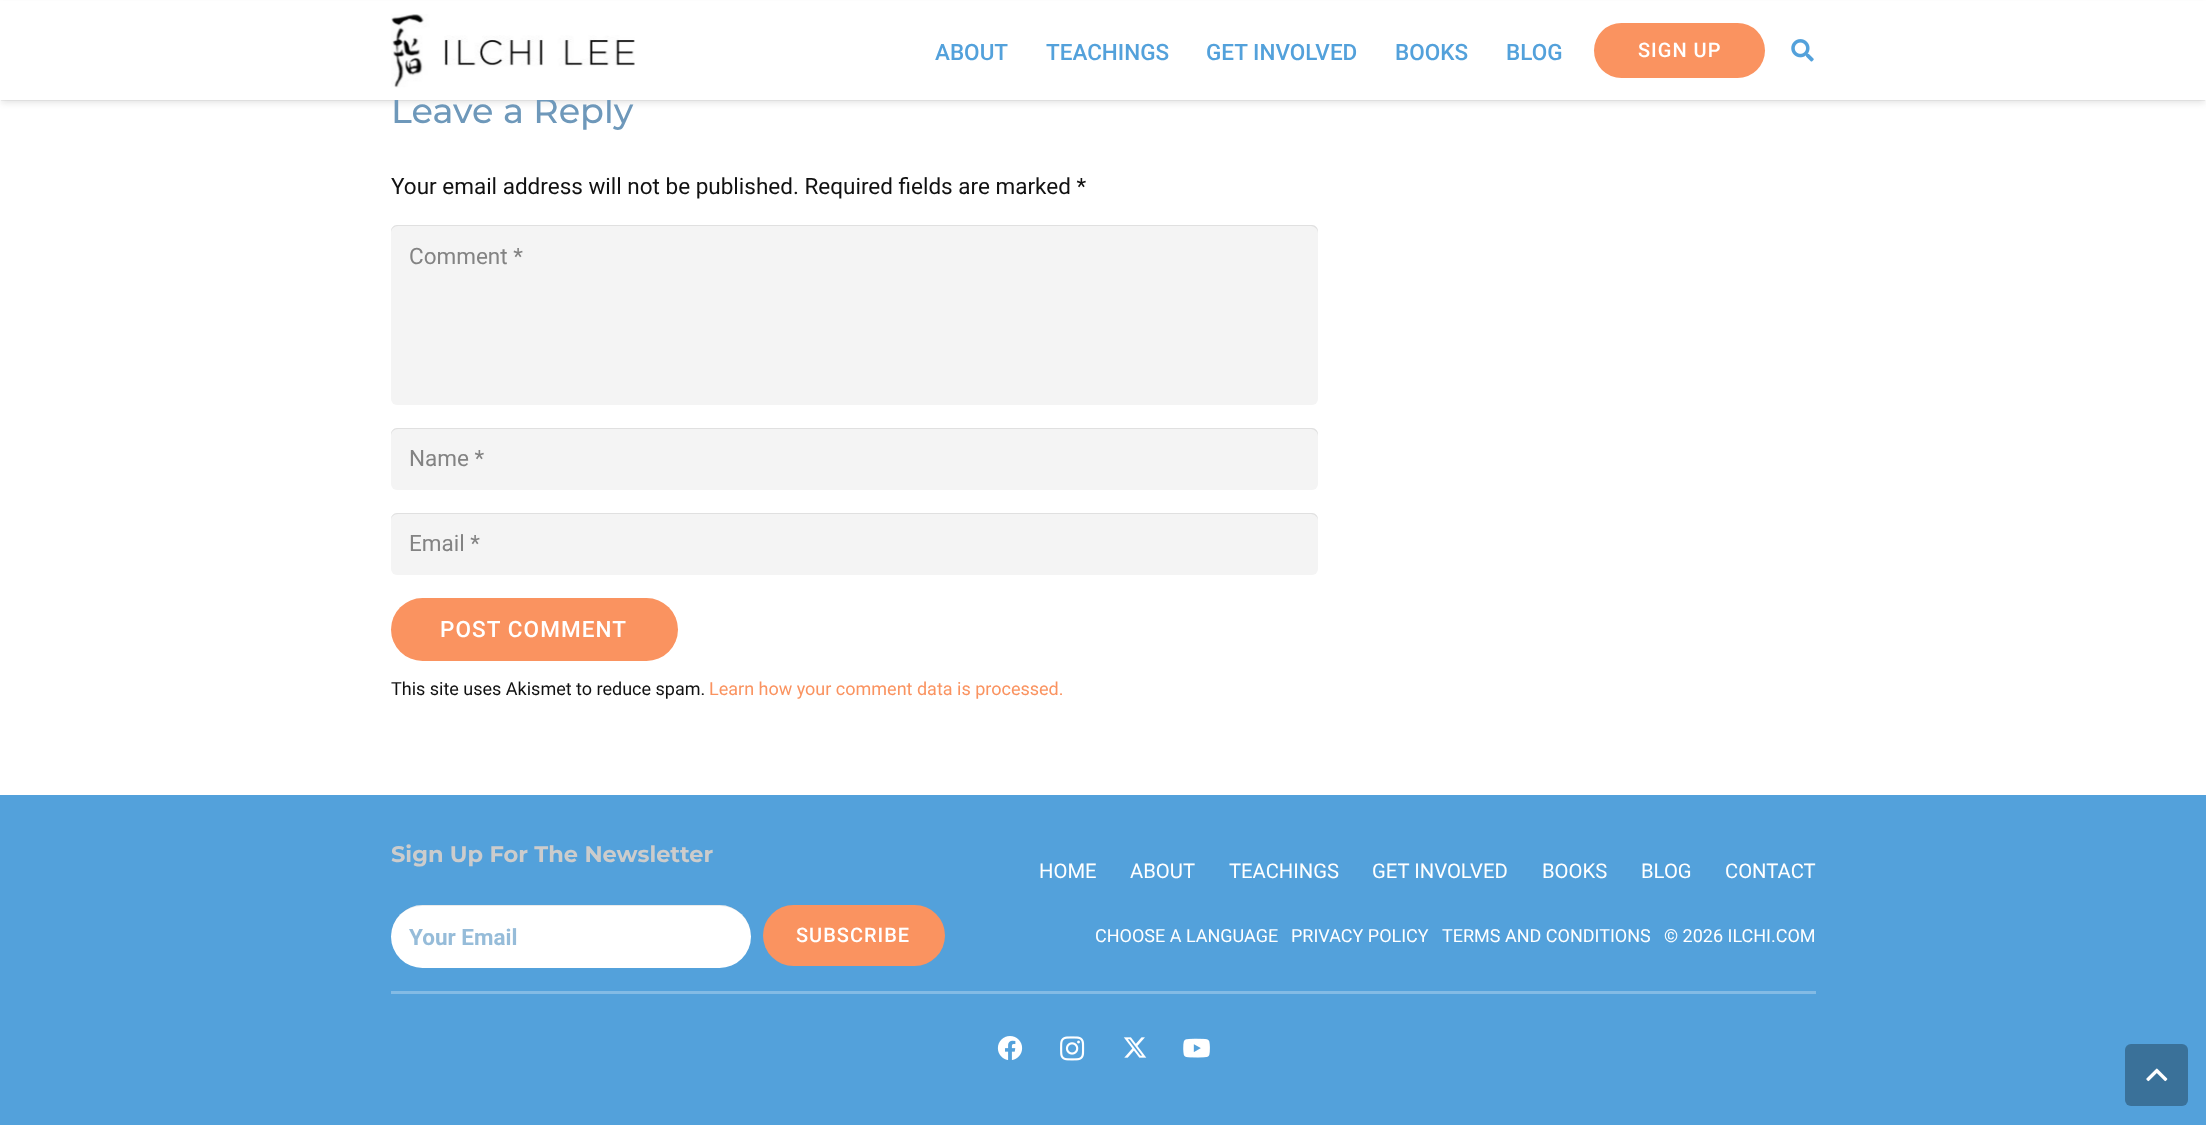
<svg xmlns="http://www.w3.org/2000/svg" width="2206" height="1125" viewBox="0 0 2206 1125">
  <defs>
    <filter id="blur1" x="-50%" y="-200%" width="200%" height="500%"><feGaussianBlur stdDeviation="0.5"/></filter>
    <filter id="blur2" x="-50%" y="-200%" width="200%" height="500%"><feGaussianBlur stdDeviation="3"/></filter>
  </defs>
  <rect width="100%" height="100%" fill="#ffffff"/>
  <rect x="1" y="4" width="2204" height="97" fill="#000000" fill-opacity="0.05" filter="url(#blur1)"/>
  <rect x="1" y="5" width="2204" height="98" fill="#000000" fill-opacity="0.1" filter="url(#blur2)"/>
  <text x="391" y="123" font-family="Montserrat" font-size="35" font-weight="500" fill="#6e98ba">Leave a Reply</text>
  <rect x="0" y="1" width="2206" height="99" fill="#ffffff"/>
  <image x="391" y="14" width="244" height="74" href="img1.png"/>
  <text x="935" y="60" font-family="Roboto" font-size="22.5" font-weight="500" fill="#53a1db">ABOUT</text>
  <text x="1046" y="60" font-family="Roboto" font-size="22.5" font-weight="500" fill="#53a1db">TEACHINGS</text>
  <text x="1206" y="60" font-family="Roboto" font-size="22.5" font-weight="500" fill="#53a1db">GET INVOLVED</text>
  <text x="1395" y="60" font-family="Roboto" font-size="22.5" font-weight="500" fill="#53a1db">BOOKS</text>
  <text x="1506" y="60" font-family="Roboto" font-size="22.5" font-weight="500" fill="#53a1db">BLOG</text>
  <rect x="1594" y="23" width="171" height="55" rx="27.5" fill="#fa9360"/>
  <text x="1638" y="57" font-family="Roboto" font-size="20" font-weight="500" letter-spacing="1" fill="#ffffff">SIGN UP</text>
  <image x="1791" y="39" width="23" height="23" href="img2.png"/>
  <text x="391" y="194" font-family="Roboto" font-size="22.5" fill="#111111">Your email address will not be published. Required fields are marked *</text>
  <rect x="391" y="225" width="927" height="180" rx="6" fill="#f4f4f4"/>
  <path d="M398 226H1311C1314 226 1318 229 1318 233V231C1318 228 1315 225 1312 225H397C394 225 391 228 391 231V233C391 229 394 226 398 226Z" fill="#e0e0e0"/>
  <text x="409" y="264" font-family="Roboto" font-size="22.5" fill="#838383">Comment *</text>
  <rect x="391" y="428" width="927" height="62" rx="6" fill="#f4f4f4"/>
  <path d="M398 429H1311C1314 429 1318 432 1318 436V434C1318 431 1315 428 1312 428H397C394 428 391 431 391 434V436C391 432 394 429 398 429Z" fill="#e0e0e0"/>
  <text x="409" y="466" font-family="Roboto" font-size="22.5" fill="#838383">Name *</text>
  <rect x="391" y="513" width="927" height="62" rx="6" fill="#f4f4f4"/>
  <path d="M398 514H1311C1314 514 1318 517 1318 520V519C1318 516 1315 513 1312 513H397C394 513 391 516 391 519V520C391 517 394 514 398 514Z" fill="#e0e0e0"/>
  <text x="409" y="551" font-family="Roboto" font-size="22.5" fill="#838383">Email *</text>
  <rect x="391" y="598" width="287" height="63" rx="31.5" fill="#fa9360"/>
  <text x="440" y="637" font-family="Roboto" font-size="22.5" font-weight="500" letter-spacing="1.1" fill="#ffffff">POST COMMENT</text>
  <text x="391" y="695" font-family="Roboto" font-size="18" fill="#111111">This site uses Akismet to reduce spam.</text>
  <text x="709" y="695" font-family="Roboto" font-size="18" fill="#fa9360">Learn how your comment data is processed.</text>
  <rect x="0" y="795" width="2206" height="330" fill="#53a1db"/>
  <text x="391" y="862" font-family="Montserrat" font-size="22.5" font-weight="bold" fill="#cccccc">Sign Up For The Newsletter</text>
  <rect x="391" y="905" width="360" height="63" rx="31.5" fill="#ffffff"/>
  <path d="M422 906H720C737 906 751 920 751 937V936C751 919 737 905 720 905H422C405 905 391 919 391 936V937C391 920 405 906 422 906Z" fill="#000000" fill-opacity="0.08"/>
  <text x="409" y="945" font-family="Roboto" font-size="22.5" font-weight="bold" fill="#96bcd9">Your Email</text>
  <rect x="763" y="905" width="182" height="61" rx="30.5" fill="#fa9360"/>
  <text x="796" y="942" font-family="Roboto" font-size="20" font-weight="500" letter-spacing="1" fill="#ffffff">SUBSCRIBE</text>
  <text x="1039" y="878" font-family="Roboto" font-size="20.25" fill="#ffffff">HOME</text>
  <text x="1130" y="878" font-family="Roboto" font-size="20.25" fill="#ffffff">ABOUT</text>
  <text x="1229" y="878" font-family="Roboto" font-size="20.25" fill="#ffffff">TEACHINGS</text>
  <text x="1372" y="878" font-family="Roboto" font-size="20.25" fill="#ffffff">GET INVOLVED</text>
  <text x="1542" y="878" font-family="Roboto" font-size="20.25" fill="#ffffff">BOOKS</text>
  <text x="1641" y="878" font-family="Roboto" font-size="20.25" fill="#ffffff">BLOG</text>
  <text x="1725" y="878" font-family="Roboto" font-size="20.25" fill="#ffffff">CONTACT</text>
  <text x="1095" y="942" font-family="Roboto" font-size="18" fill="#ffffff">CHOOSE A LANGUAGE</text>
  <text x="1291" y="942" font-family="Roboto" font-size="18" fill="#ffffff">PRIVACY POLICY</text>
  <text x="1442" y="942" font-family="Roboto" font-size="18" fill="#ffffff">TERMS AND CONDITIONS</text>
  <text x="1664" y="942" font-family="Roboto" font-size="18" fill="#ffffff">© 2026 ILCHI.COM</text>
  <rect x="391" y="991" width="1425" height="3" fill="#83bbe5"/>
  <image x="997" y="1036" width="26" height="24" href="img3.png"/>
  <image x="1060" y="1036" width="25" height="25" href="img4.png"/>
  <image x="1123" y="1037" width="24" height="21" href="img5.png"/>
  <image x="1183" y="1038" width="27" height="20" href="img6.png"/>
  <rect x="2125" y="1044" width="63" height="62" rx="6" fill="#3a7199"/>
  <image x="2146" y="1068" width="22" height="14" href="img7.png"/>
</svg>
